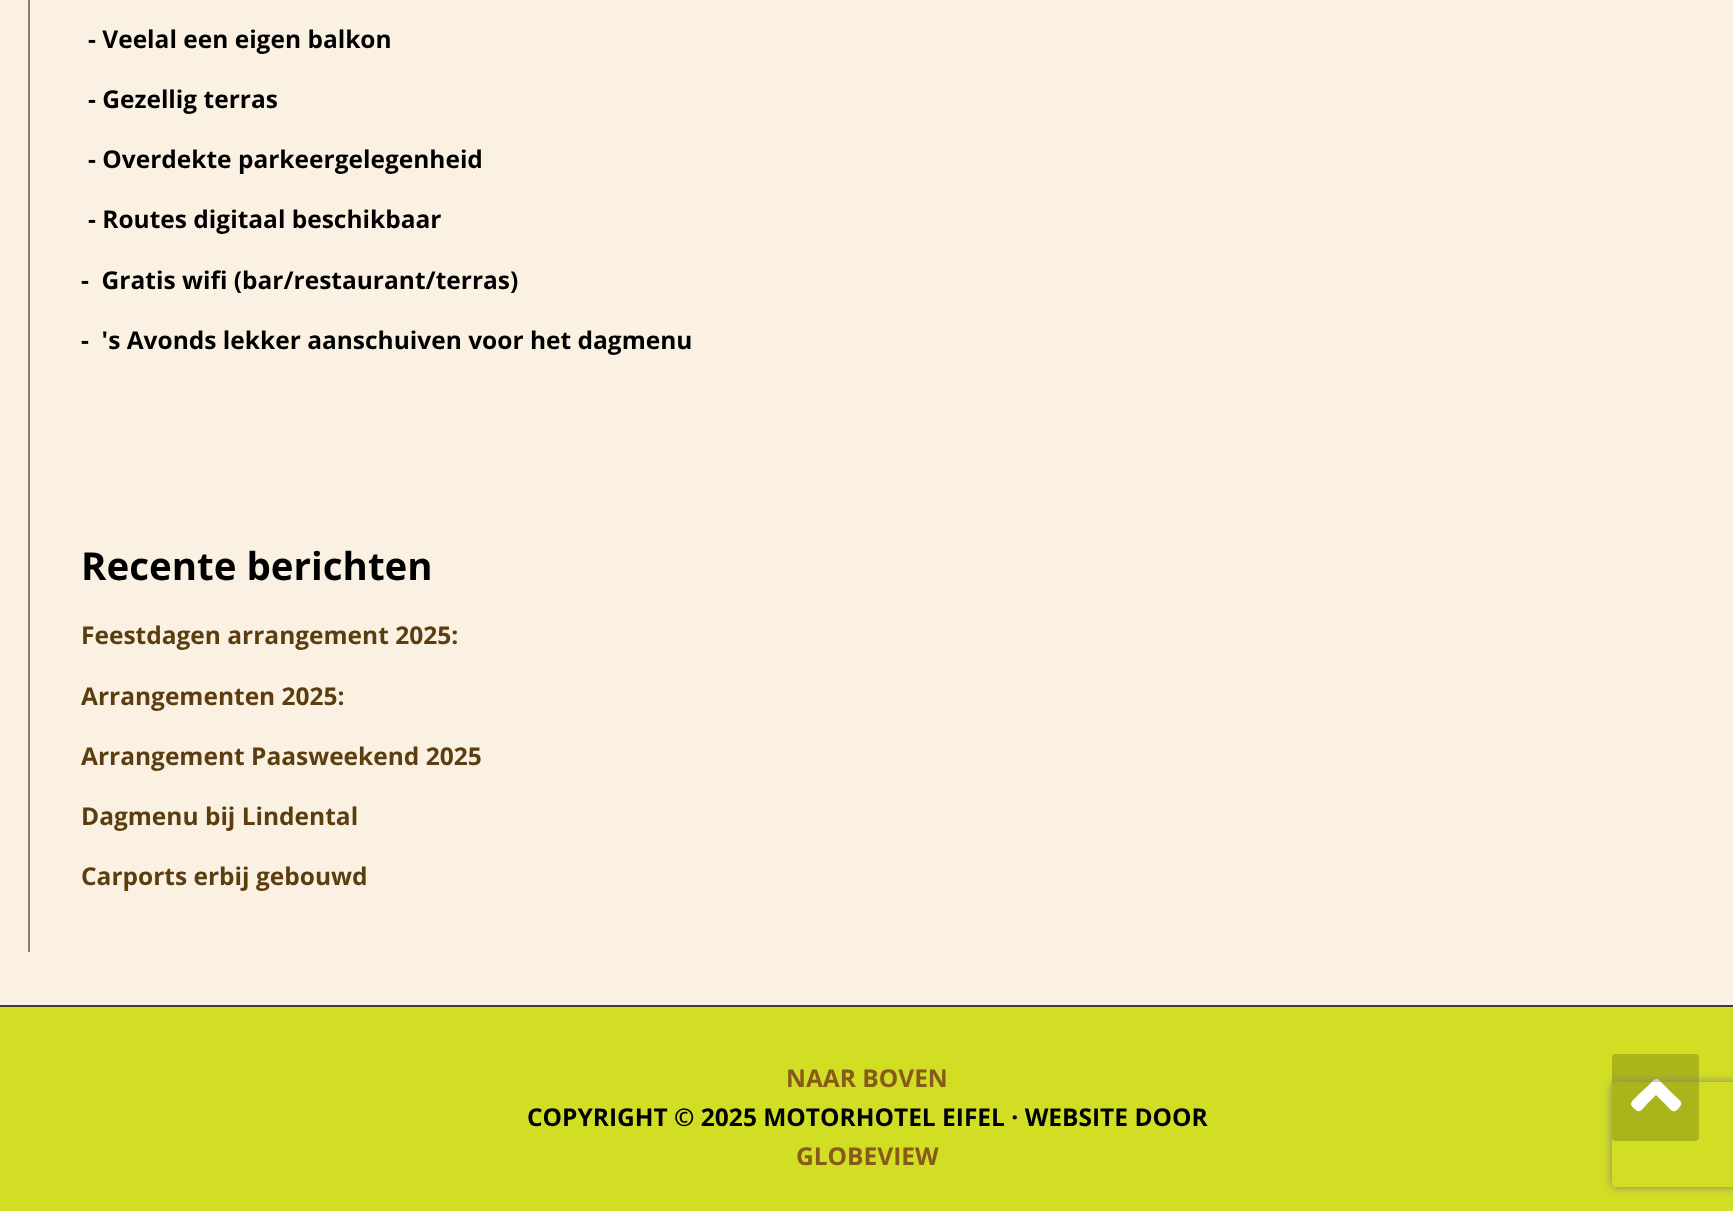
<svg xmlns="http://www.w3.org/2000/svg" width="1733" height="1211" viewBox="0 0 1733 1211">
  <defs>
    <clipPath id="clip1"><path d="M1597 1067H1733V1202H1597ZM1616 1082H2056C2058 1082 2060 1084 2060 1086V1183C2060 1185 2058 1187 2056 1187H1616C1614 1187 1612 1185 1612 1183V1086C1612 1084 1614 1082 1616 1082Z" clip-rule="evenodd"/></clipPath>
    <filter id="blur1" x="-50%" y="-200%" width="200%" height="500%"><feGaussianBlur stdDeviation="4.5"/></filter>
  </defs>
  <rect width="100%" height="100%" fill="#faf1e2"/>
  <rect x="28" y="0" width="2" height="952" fill="#8b7c6c"/>
  <text x="88" y="48" font-family="Open Sans" font-size="24.5" font-weight="bold" fill="#000000">- Veelal een eigen balkon</text>
  <text x="88" y="108" font-family="Open Sans" font-size="24.5" font-weight="bold" fill="#000000">- Gezellig terras</text>
  <text x="88" y="168" font-family="Open Sans" font-size="24.5" font-weight="bold" fill="#000000">- Overdekte parkeergelegenheid</text>
  <text x="88" y="228" font-family="Open Sans" font-size="24.5" font-weight="bold" fill="#000000">- Routes digitaal beschikbaar</text>
  <text x="81" y="289" font-family="Open Sans" font-size="24.5" font-weight="bold" fill="#000000" xml:space="preserve">-  Gratis wifi (bar/restaurant/terras)</text>
  <text x="81" y="349" font-family="Open Sans" font-size="24.5" font-weight="bold" fill="#000000" xml:space="preserve">-  's Avonds lekker aanschuiven voor het dagmenu</text>
  <text x="81" y="580" font-family="Open Sans" font-size="38.5" font-weight="bold" fill="#000000">Recente berichten</text>
  <text x="81" y="644" font-family="Open Sans" font-size="24.5" font-weight="bold" fill="#5b3d10">Feestdagen arrangement 2025:</text>
  <text x="81" y="705" font-family="Open Sans" font-size="24.5" font-weight="bold" fill="#5b3d10">Arrangementen 2025:</text>
  <text x="81" y="765" font-family="Open Sans" font-size="24.5" font-weight="bold" fill="#5b3d10">Arrangement Paasweekend 2025</text>
  <text x="81" y="825" font-family="Open Sans" font-size="24.5" font-weight="bold" fill="#5b3d10">Dagmenu bij Lindental</text>
  <text x="81" y="885" font-family="Open Sans" font-size="24.5" font-weight="bold" fill="#5b3d10">Carports erbij gebouwd</text>
  <rect x="0" y="1007" width="1733" height="204" fill="#d2de24"/>
  <rect x="0" y="1005" width="1733" height="2" fill="#3c3c3c"/>
  <text x="786" y="1087" font-family="Open Sans" font-size="24.5" font-weight="bold" fill="#865a18">NAAR BOVEN</text>
  <rect x="1612" y="1054" width="87" height="87" rx="4" fill="#aab41b"/>
  <path d="M1659 1080L1673 1094C1680 1101 1685 1102 1678 1109C1673 1114 1671 1110 1666 1105L1656 1095L1646 1105C1644 1107 1640 1114 1636 1110C1627 1103 1632 1102 1639 1094L1650 1084C1652 1081 1656 1077 1659 1080Z" fill="#ffffff"/>
  <text x="527" y="1126" font-family="Open Sans" font-size="24.5" font-weight="bold" fill="#000000">COPYRIGHT © 2025 MOTORHOTEL EIFEL · WEBSITE DOOR</text>
  <text x="796" y="1165" font-family="Open Sans" font-size="24.5" font-weight="bold" fill="#865a18">GLOBEVIEW</text>
  <g clip-path="url(#clip1)">
    <rect x="1612" y="1082" width="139" height="105" rx="4" fill="#808080" filter="url(#blur1)"/>
  </g>
</svg>
